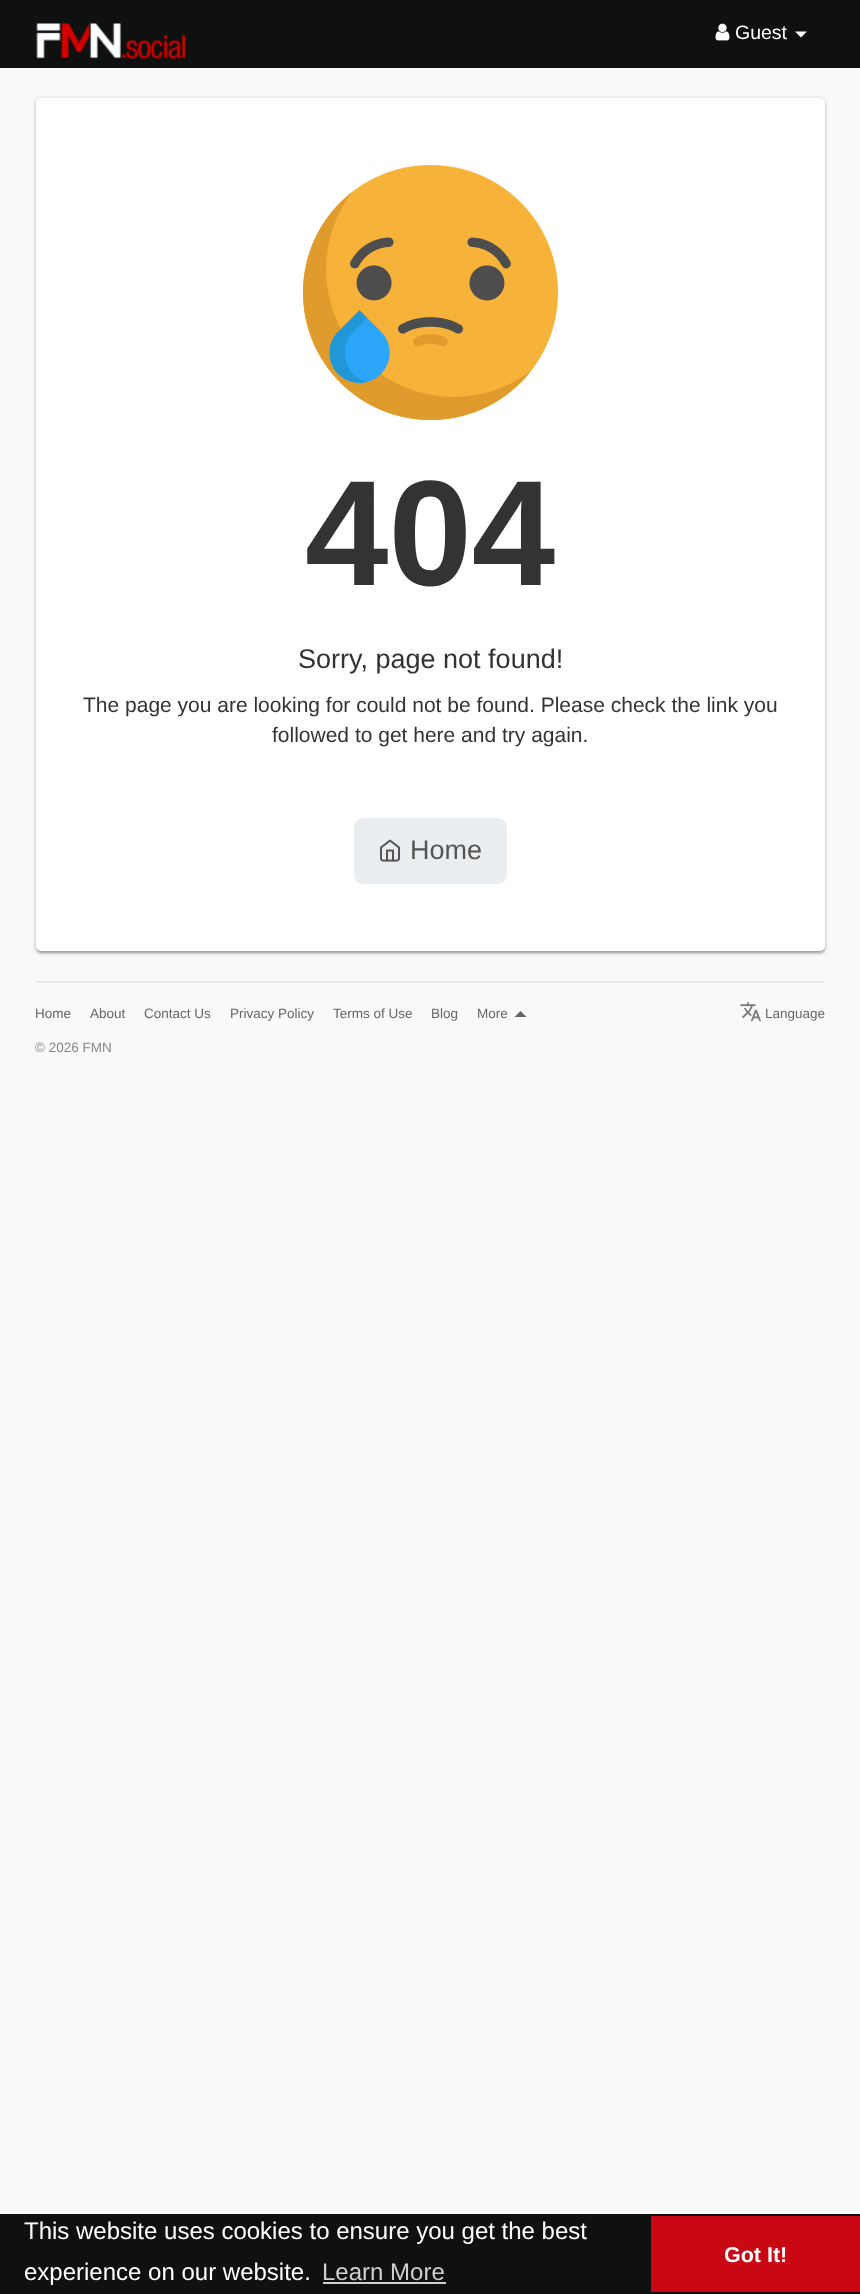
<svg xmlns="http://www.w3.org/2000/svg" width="860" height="2294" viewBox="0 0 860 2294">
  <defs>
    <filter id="blur1" x="-50%" y="-200%" width="200%" height="500%"><feGaussianBlur stdDeviation="1"/></filter>
    <filter id="blur2" x="-50%" y="-200%" width="200%" height="500%"><feGaussianBlur stdDeviation="2"/></filter>
  </defs>
  <rect width="100%" height="100%" fill="#f9f9f9"/>
  <rect x="0" y="0" width="860" height="68" fill="#0f1110"/>
  <image x="36" y="23" width="150" height="36" href="img1.png"/>
  <image x="715" y="23" width="15" height="18" href="img2.png"/>
  <text x="735" y="39" font-family="Liberation Sans" font-size="19.5" fill="#ffffff">Guest</text>
  <path d="M795 31.5H807L801 37.5Z" fill="#ffffff"/>
  <rect x="38" y="102" width="786" height="851" rx="3" fill="#000000" fill-opacity="0.12" filter="url(#blur1)"/>
  <rect x="36" y="99" width="789" height="854" rx="5" fill="#000000" fill-opacity="0.14" filter="url(#blur1)"/>
  <rect x="36" y="99" width="789" height="854" rx="5" fill="#000000" fill-opacity="0.2" filter="url(#blur2)"/>
  <rect x="36" y="98" width="789" height="853" rx="5" fill="#ffffff"/>
  <image x="303" y="165" width="255" height="255" href="img3.png"/>
  <text x="305" y="585" font-family="Liberation Sans" font-size="150" font-weight="bold" fill="#333333">404</text>
  <text x="298" y="668" font-family="Liberation Sans" font-size="27" fill="#333333">Sorry, page not found!</text>
  <text x="83" y="712" font-family="Liberation Sans" font-size="21" fill="#333333">The page you are looking for could not be found. Please check the link you</text>
  <text x="272" y="742" font-family="Liberation Sans" font-size="21" fill="#333333">followed to get here and try again.</text>
  <rect x="354" y="818" width="153" height="66" rx="9" fill="#ebeef0"/>
  <image x="380" y="839" width="20" height="23" href="img4.png"/>
  <text x="410" y="859" font-family="Liberation Sans" font-size="27" fill="#555555">Home</text>
  <rect x="36" y="981" width="789" height="2" fill="#e9e9e9"/>
  <text x="35" y="1018" font-family="Liberation Sans" font-size="13.5" fill="#666666">Home</text>
  <text x="90" y="1018" font-family="Liberation Sans" font-size="13.5" fill="#666666">About</text>
  <text x="144" y="1018" font-family="Liberation Sans" font-size="13.5" fill="#666666">Contact Us</text>
  <text x="230" y="1018" font-family="Liberation Sans" font-size="13.5" fill="#666666">Privacy Policy</text>
  <text x="333" y="1018" font-family="Liberation Sans" font-size="13.5" fill="#666666">Terms of Use</text>
  <text x="431" y="1018" font-family="Liberation Sans" font-size="13.5" fill="#666666">Blog</text>
  <text x="477" y="1018" font-family="Liberation Sans" font-size="13.5" fill="#666666">More</text>
  <path d="M526.5 1017H514.5L520.5 1011Z" fill="#666666"/>
  <image x="740" y="1002" width="21" height="20" href="img5.png"/>
  <text x="765" y="1018" font-family="Liberation Sans" font-size="13.5" fill="#666666">Language</text>
  <text x="35" y="1052" font-family="Liberation Sans" font-size="13.5" fill="#888888">© 2026 FMN</text>
  <rect x="0" y="2214" width="860" height="80" fill="#0f1110"/>
  <text x="24" y="2239" font-family="Liberation Sans" font-size="24" fill="#ffffff">This website uses cookies to ensure you get the best</text>
  <text x="24" y="2280" font-family="Liberation Sans" font-size="24" fill="#ffffff">experience on our website.</text>
  <text x="322" y="2280" font-family="Liberation Sans" font-size="24" fill="#cfcfcf">Learn More</text>
  <rect x="323" y="2282" width="123" height="2" fill="#cfcfcf"/>
  <rect x="651" y="2216" width="209" height="76" fill="#c90813"/>
  <text x="724" y="2262" font-family="Liberation Sans" font-size="21.5" font-weight="bold" fill="#ffffff">Got It!</text>
</svg>
